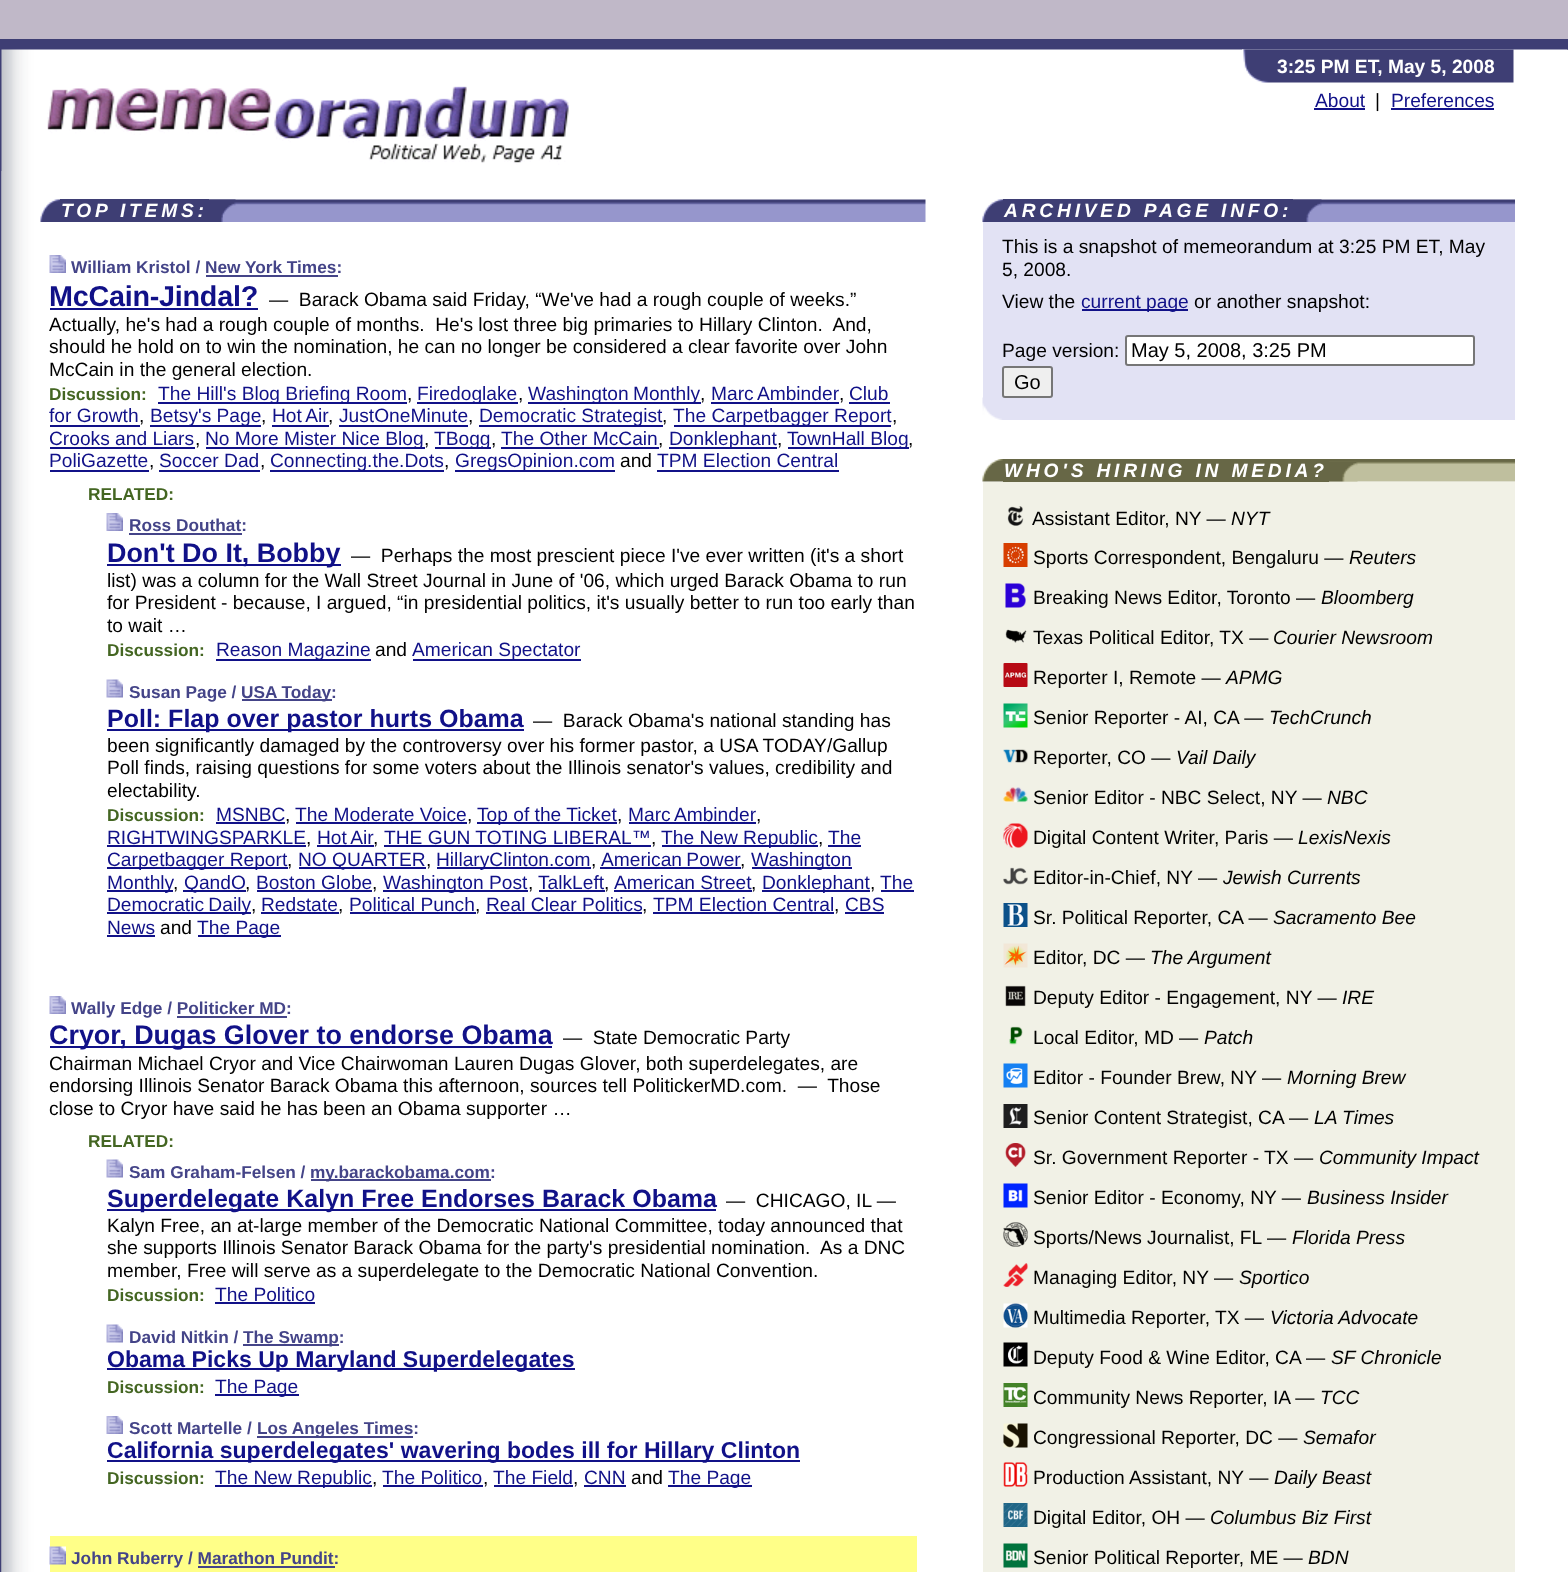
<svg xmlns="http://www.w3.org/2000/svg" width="1568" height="1572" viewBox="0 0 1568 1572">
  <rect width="100%" height="100%" fill="#c0b8c8"/>
  <rect x="1567" y="50" width="1" height="1522" fill="#ffffff"/>
  <rect x="2" y="39" width="1566" height="11" fill="#3e3e74"/>
  <rect x="0" y="39" width="2" height="1533" fill="#3e3e74"/>
  <image x="1" y="49" width="1567" height="1523" href="img1.png"/>
  <image x="47" y="86" width="523" height="79" href="img2.png"/>
  <image x="1242" y="49" width="272" height="34" href="img3.png"/>
  <text x="1277" y="73" font-family="Liberation Sans" font-size="19.2" font-weight="bold" fill="#ffffff">3:25 PM ET, May 5, 2008</text>
  <text x="1315" y="107" font-family="Liberation Sans" font-size="19.2" fill="#111188">About</text>
  <rect x="1314" y="108" width="51" height="2" fill="#111188"/>
  <text x="1375" y="107" font-family="Liberation Sans" font-size="19.2" fill="#000000">|</text>
  <text x="1391" y="107" font-family="Liberation Sans" font-size="19.2" fill="#111188">Preferences</text>
  <rect x="1391" y="108" width="103" height="2" fill="#111188"/>
  <rect x="1" y="171" width="1" height="1401" fill="#a2a3b5"/>
  <image x="209" y="199" width="717" height="23" href="img4.png"/>
  <image x="40" y="199" width="20" height="23" href="img5.png"/>
  <rect x="60" y="199" width="149" height="23" fill="#3e3e74"/>
  <text x="61" y="217" font-family="Liberation Sans" font-size="19.2" font-weight="bold" font-style="italic" letter-spacing="3.8" fill="#ffffff">TOP ITEMS:</text>
  <image x="209" y="199" width="27" height="23" href="img6.png"/>
  <image x="49" y="255" width="17" height="18" href="img7.png"/>
  <text x="71" y="273" font-family="Liberation Sans" font-size="17.25" font-weight="bold" fill="#444488">William Kristol / New York Times:</text>
  <rect x="206" y="275" width="132" height="2" fill="#444488"/>
  <text x="49" y="306" font-family="Liberation Sans" font-size="28.75" font-weight="bold" letter-spacing="-0.25" fill="#111188">McCain-Jindal?</text>
  <rect x="50" y="308" width="208" height="2" fill="#111188"/>
  <text x="269" y="306" font-family="Liberation Sans" font-size="19.2" fill="#000000" xml:space="preserve">—  Barack Obama said Friday, “We've had a rough couple of weeks.”</text>
  <text x="49" y="331" font-family="Liberation Sans" font-size="19.2" fill="#000000" xml:space="preserve">Actually, he's had a rough couple of months.  He's lost three big primaries to Hillary Clinton.  And,</text>
  <text x="49" y="353" font-family="Liberation Sans" font-size="19.2" fill="#000000">should he hold on to win the nomination, he can no longer be considered a clear favorite over John</text>
  <text x="49" y="376" font-family="Liberation Sans" font-size="19.2" fill="#000000">McCain in the general election.</text>
  <text x="49" y="400" font-family="Liberation Sans" font-size="17.25" font-weight="bold" fill="#446622">Discussion:</text>
  <rect x="158" y="402" width="249" height="2" fill="#111188"/>
  <text x="158" y="400" font-family="Liberation Sans" font-size="19.2" fill="#111188">The Hill's Blog Briefing Room</text>
  <text x="407" y="400" font-family="Liberation Sans" font-size="19.2" fill="#000000">,</text>
  <rect x="417" y="402" width="101" height="2" fill="#111188"/>
  <text x="417" y="400" font-family="Liberation Sans" font-size="19.2" fill="#111188">Firedoglake</text>
  <text x="518" y="400" font-family="Liberation Sans" font-size="19.2" fill="#000000">,</text>
  <rect x="528" y="402" width="173" height="2" fill="#111188"/>
  <text x="528" y="400" word-spacing="-1" font-family="Liberation Sans" font-size="19.2" fill="#111188">Washington Monthly</text>
  <text x="700" y="400" font-family="Liberation Sans" font-size="19.2" fill="#000000">,</text>
  <text x="711" y="400" word-spacing="-1" font-family="Liberation Sans" font-size="19.2" fill="#111188">Marc Ambinder</text>
  <rect x="711" y="402" width="128" height="2" fill="#111188"/>
  <text x="839" y="400" font-family="Liberation Sans" font-size="19.2" fill="#000000">,</text>
  <text x="849" y="400" font-family="Liberation Sans" font-size="19.2" fill="#111188">Club</text>
  <rect x="849" y="402" width="41" height="2" fill="#111188"/>
  <text x="49" y="422" font-family="Liberation Sans" font-size="19.2" fill="#111188">for Growth</text>
  <rect x="50" y="425" width="90" height="2" fill="#111188"/>
  <text x="139" y="422" font-family="Liberation Sans" font-size="19.2" fill="#000000">,</text>
  <rect x="150" y="425" width="111" height="2" fill="#111188"/>
  <text x="150" y="422" font-family="Liberation Sans" font-size="19.2" fill="#111188">Betsy's Page</text>
  <text x="261" y="422" font-family="Liberation Sans" font-size="19.2" fill="#000000">,</text>
  <text x="272" y="422" word-spacing="-1" font-family="Liberation Sans" font-size="19.2" fill="#111188">Hot Air</text>
  <rect x="272" y="425" width="57" height="2" fill="#111188"/>
  <text x="328" y="422" font-family="Liberation Sans" font-size="19.2" fill="#000000">,</text>
  <text x="339" y="422" font-family="Liberation Sans" font-size="19.2" fill="#111188">JustOneMinute</text>
  <rect x="339" y="425" width="129" height="2" fill="#111188"/>
  <text x="468" y="422" font-family="Liberation Sans" font-size="19.2" fill="#000000">,</text>
  <rect x="479" y="425" width="184" height="2" fill="#111188"/>
  <text x="479" y="422" font-family="Liberation Sans" font-size="19.2" fill="#111188">Democratic Strategist</text>
  <text x="662" y="422" font-family="Liberation Sans" font-size="19.2" fill="#000000">,</text>
  <rect x="674" y="425" width="217" height="2" fill="#111188"/>
  <text x="673" y="422" font-family="Liberation Sans" font-size="19.2" fill="#111188">The Carpetbagger Report</text>
  <text x="892" y="422" font-family="Liberation Sans" font-size="19.2" fill="#000000">,</text>
  <text x="49" y="445" font-family="Liberation Sans" font-size="19.2" fill="#111188">Crooks and Liars</text>
  <rect x="50" y="447" width="145" height="2" fill="#111188"/>
  <text x="195" y="445" font-family="Liberation Sans" font-size="19.2" fill="#000000">,</text>
  <rect x="206" y="447" width="219" height="2" fill="#111188"/>
  <text x="205" y="445" font-family="Liberation Sans" font-size="19.2" fill="#111188">No More Mister Nice Blog</text>
  <text x="424" y="445" font-family="Liberation Sans" font-size="19.2" fill="#000000">,</text>
  <rect x="435" y="447" width="56" height="2" fill="#111188"/>
  <text x="434" y="445" font-family="Liberation Sans" font-size="19.2" fill="#111188">TBogg</text>
  <text x="491" y="445" font-family="Liberation Sans" font-size="19.2" fill="#000000">,</text>
  <text x="501" y="445" font-family="Liberation Sans" font-size="19.2" fill="#111188">The Other McCain</text>
  <rect x="501" y="447" width="158" height="2" fill="#111188"/>
  <text x="658" y="445" font-family="Liberation Sans" font-size="19.2" fill="#000000">,</text>
  <rect x="669" y="447" width="108" height="2" fill="#111188"/>
  <text x="669" y="445" font-family="Liberation Sans" font-size="19.2" fill="#111188">Donklephant</text>
  <text x="777" y="445" font-family="Liberation Sans" font-size="19.2" fill="#000000">,</text>
  <rect x="788" y="447" width="121" height="2" fill="#111188"/>
  <text x="787" y="445" font-family="Liberation Sans" font-size="19.2" fill="#111188">TownHall Blog</text>
  <text x="908" y="445" font-family="Liberation Sans" font-size="19.2" fill="#000000">,</text>
  <text x="49" y="467" font-family="Liberation Sans" font-size="19.2" fill="#111188">PoliGazette</text>
  <rect x="50" y="470" width="99" height="2" fill="#111188"/>
  <text x="149" y="467" font-family="Liberation Sans" font-size="19.2" fill="#000000">,</text>
  <text x="159" y="467" font-family="Liberation Sans" font-size="19.2" fill="#111188">Soccer Dad</text>
  <rect x="159" y="470" width="101" height="2" fill="#111188"/>
  <text x="260" y="467" font-family="Liberation Sans" font-size="19.2" fill="#000000">,</text>
  <rect x="270" y="470" width="174" height="2" fill="#111188"/>
  <text x="270" y="467" font-family="Liberation Sans" font-size="19.2" fill="#111188">Connecting.the.Dots</text>
  <text x="444" y="467" font-family="Liberation Sans" font-size="19.2" fill="#000000">,</text>
  <rect x="455" y="470" width="160" height="2" fill="#111188"/>
  <text x="455" y="467" font-family="Liberation Sans" font-size="19.2" fill="#111188">GregsOpinion.com</text>
  <text x="620" y="467" font-family="Liberation Sans" font-size="19.2" fill="#000000">and</text>
  <text x="657" y="467" font-family="Liberation Sans" font-size="19.2" fill="#111188">TPM Election Central</text>
  <rect x="657" y="470" width="182" height="2" fill="#111188"/>
  <text x="88" y="500" font-family="Liberation Sans" font-size="17.25" font-weight="bold" fill="#446622">RELATED:</text>
  <image x="106" y="513" width="17" height="18" href="img7.png"/>
  <text x="129" y="531" font-family="Liberation Sans" font-size="17.25" font-weight="bold" fill="#444488">Ross Douthat:</text>
  <rect x="129" y="533" width="113" height="2" fill="#444488"/>
  <rect x="107" y="564" width="234" height="2" fill="#111188"/>
  <text x="107" y="562" font-family="Liberation Sans" font-size="26.9" font-weight="bold" fill="#111188">Don't Do It, Bobby</text>
  <text x="351" y="562" font-family="Liberation Sans" font-size="19.2" fill="#000000" xml:space="preserve">—  Perhaps the most prescient piece I've ever written (it's a short</text>
  <text x="107" y="587" font-family="Liberation Sans" font-size="19.2" fill="#000000">list) was a column for the Wall Street Journal in June of '06, which urged Barack Obama to run</text>
  <text x="107" y="609" font-family="Liberation Sans" font-size="19.2" fill="#000000">for President - because, I argued, “in presidential politics, it's usually better to run too early than</text>
  <text x="107" y="632" font-family="Liberation Sans" font-size="19.2" fill="#000000">to wait …</text>
  <text x="107" y="656" font-family="Liberation Sans" font-size="17.25" font-weight="bold" fill="#446622">Discussion:</text>
  <rect x="216" y="659" width="155" height="2" fill="#111188"/>
  <text x="216" y="656" font-family="Liberation Sans" font-size="19.2" fill="#111188">Reason Magazine</text>
  <text x="375" y="656" font-family="Liberation Sans" font-size="19.2" fill="#000000">and</text>
  <rect x="413" y="659" width="168" height="2" fill="#111188"/>
  <text x="412" y="656" font-family="Liberation Sans" font-size="19.2" fill="#111188">American Spectator</text>
  <image x="106" y="679" width="17" height="19" href="img8.png"/>
  <text x="129" y="698" font-family="Liberation Sans" font-size="17.25" font-weight="bold" fill="#444488">Susan Page /</text>
  <rect x="242" y="699" width="90" height="2" fill="#444488"/>
  <text x="241" y="698" font-family="Liberation Sans" font-size="17.25" font-weight="bold" fill="#444488">USA Today:</text>
  <rect x="107" y="729" width="417" height="2" fill="#111188"/>
  <text x="107" y="727" font-family="Liberation Sans" font-size="25" font-weight="bold" fill="#111188">Poll: Flap over pastor hurts Obama</text>
  <text x="533" y="727" font-family="Liberation Sans" font-size="19.2" fill="#000000" xml:space="preserve">—  Barack Obama's national standing has</text>
  <text x="107" y="752" font-family="Liberation Sans" font-size="19.2" fill="#000000">been significantly damaged by the controversy over his former pastor, a USA TODAY/Gallup</text>
  <text x="107" y="774" font-family="Liberation Sans" font-size="19.2" fill="#000000">Poll finds, raising questions for some voters about the Illinois senator's values, credibility and</text>
  <text x="107" y="797" font-family="Liberation Sans" font-size="19.2" fill="#000000">electability.</text>
  <text x="107" y="821" font-family="Liberation Sans" font-size="17.25" font-weight="bold" fill="#446622">Discussion:</text>
  <text x="216" y="821" font-family="Liberation Sans" font-size="19.2" fill="#111188">MSNBC</text>
  <rect x="216" y="822" width="69" height="2" fill="#111188"/>
  <text x="285" y="821" font-family="Liberation Sans" font-size="19.2" fill="#000000">,</text>
  <text x="295" y="821" font-family="Liberation Sans" font-size="19.2" fill="#111188">The Moderate Voice</text>
  <rect x="296" y="822" width="171" height="2" fill="#111188"/>
  <text x="467" y="821" font-family="Liberation Sans" font-size="19.2" fill="#000000">,</text>
  <rect x="477" y="822" width="140" height="2" fill="#111188"/>
  <text x="477" y="821" font-family="Liberation Sans" font-size="19.2" fill="#111188">Top of the Ticket</text>
  <text x="617" y="821" font-family="Liberation Sans" font-size="19.2" fill="#000000">,</text>
  <text x="628" y="821" word-spacing="-1" font-family="Liberation Sans" font-size="19.2" fill="#111188">Marc Ambinder</text>
  <rect x="629" y="822" width="127" height="2" fill="#111188"/>
  <text x="756" y="821" font-family="Liberation Sans" font-size="19.2" fill="#000000">,</text>
  <text x="107" y="844" font-family="Liberation Sans" font-size="19.2" fill="#111188">RIGHTWINGSPARKLE</text>
  <rect x="107" y="845" width="199" height="2" fill="#111188"/>
  <text x="306" y="844" font-family="Liberation Sans" font-size="19.2" fill="#000000">,</text>
  <text x="317" y="844" word-spacing="-1" font-family="Liberation Sans" font-size="19.2" fill="#111188">Hot Air</text>
  <rect x="317" y="845" width="57" height="2" fill="#111188"/>
  <text x="373" y="844" font-family="Liberation Sans" font-size="19.2" fill="#000000">,</text>
  <text x="384" y="844" font-family="Liberation Sans" font-size="19.2" fill="#111188">THE GUN TOTING LIBERAL™</text>
  <rect x="384" y="845" width="267" height="2" fill="#111188"/>
  <text x="651" y="844" font-family="Liberation Sans" font-size="19.2" fill="#000000">,</text>
  <rect x="662" y="845" width="156" height="2" fill="#111188"/>
  <text x="661" y="844" font-family="Liberation Sans" font-size="19.2" fill="#111188">The New Republic</text>
  <text x="818" y="844" font-family="Liberation Sans" font-size="19.2" fill="#000000">,</text>
  <text x="828" y="844" font-family="Liberation Sans" font-size="19.2" fill="#111188">The</text>
  <rect x="828" y="845" width="33" height="2" fill="#111188"/>
  <rect x="107" y="867" width="181" height="2" fill="#111188"/>
  <text x="107" y="866" font-family="Liberation Sans" font-size="19.2" fill="#111188">Carpetbagger Report</text>
  <text x="287" y="866" font-family="Liberation Sans" font-size="19.2" fill="#000000">,</text>
  <rect x="299" y="867" width="127" height="2" fill="#111188"/>
  <text x="298" y="866" font-family="Liberation Sans" font-size="19.2" fill="#111188">NO QUARTER</text>
  <text x="426" y="866" font-family="Liberation Sans" font-size="19.2" fill="#000000">,</text>
  <rect x="437" y="867" width="154" height="2" fill="#111188"/>
  <text x="436" y="866" font-family="Liberation Sans" font-size="19.2" fill="#111188">HillaryClinton.com</text>
  <text x="591" y="866" font-family="Liberation Sans" font-size="19.2" fill="#000000">,</text>
  <text x="601" y="866" word-spacing="-1" font-family="Liberation Sans" font-size="19.2" fill="#111188">American Power</text>
  <rect x="600" y="867" width="141" height="2" fill="#111188"/>
  <text x="740" y="866" font-family="Liberation Sans" font-size="19.2" fill="#000000">,</text>
  <rect x="752" y="867" width="100" height="2" fill="#111188"/>
  <text x="751" y="866" font-family="Liberation Sans" font-size="19.2" fill="#111188">Washington</text>
  <rect x="107" y="890" width="66" height="2" fill="#111188"/>
  <text x="107" y="889" font-family="Liberation Sans" font-size="19.2" fill="#111188">Monthly</text>
  <text x="173" y="889" font-family="Liberation Sans" font-size="19.2" fill="#000000">,</text>
  <rect x="183" y="890" width="63" height="2" fill="#111188"/>
  <text x="184" y="889" font-family="Liberation Sans" font-size="19.2" fill="#111188">QandO</text>
  <text x="245" y="889" font-family="Liberation Sans" font-size="19.2" fill="#000000">,</text>
  <text x="256" y="889" font-family="Liberation Sans" font-size="19.2" fill="#111188">Boston Globe</text>
  <rect x="257" y="890" width="115" height="2" fill="#111188"/>
  <text x="372" y="889" font-family="Liberation Sans" font-size="19.2" fill="#000000">,</text>
  <rect x="383" y="890" width="145" height="2" fill="#111188"/>
  <text x="383" y="889" font-family="Liberation Sans" font-size="19.2" fill="#111188">Washington Post</text>
  <text x="528" y="889" font-family="Liberation Sans" font-size="19.2" fill="#000000">,</text>
  <text x="538" y="889" font-family="Liberation Sans" font-size="19.2" fill="#111188">TalkLeft</text>
  <rect x="539" y="890" width="66" height="2" fill="#111188"/>
  <text x="604" y="889" font-family="Liberation Sans" font-size="19.2" fill="#000000">,</text>
  <text x="614" y="889" font-family="Liberation Sans" font-size="19.2" fill="#111188">American Street</text>
  <rect x="614" y="890" width="138" height="2" fill="#111188"/>
  <text x="751" y="889" font-family="Liberation Sans" font-size="19.2" fill="#000000">,</text>
  <rect x="762" y="890" width="108" height="2" fill="#111188"/>
  <text x="762" y="889" font-family="Liberation Sans" font-size="19.2" fill="#111188">Donklephant</text>
  <text x="870" y="889" font-family="Liberation Sans" font-size="19.2" fill="#000000">,</text>
  <text x="880" y="889" font-family="Liberation Sans" font-size="19.2" fill="#111188">The</text>
  <rect x="881" y="890" width="33" height="2" fill="#111188"/>
  <rect x="107" y="912" width="144" height="2" fill="#111188"/>
  <text x="107" y="911" word-spacing="-1" font-family="Liberation Sans" font-size="19.2" fill="#111188">Democratic Daily</text>
  <text x="251" y="911" font-family="Liberation Sans" font-size="19.2" fill="#000000">,</text>
  <text x="261" y="911" font-family="Liberation Sans" font-size="19.2" fill="#111188">Redstate</text>
  <rect x="261" y="912" width="78" height="2" fill="#111188"/>
  <text x="338" y="911" font-family="Liberation Sans" font-size="19.2" fill="#000000">,</text>
  <text x="349" y="911" font-family="Liberation Sans" font-size="19.2" fill="#111188">Political Punch</text>
  <rect x="350" y="912" width="126" height="2" fill="#111188"/>
  <text x="475" y="911" font-family="Liberation Sans" font-size="19.2" fill="#000000">,</text>
  <text x="486" y="911" font-family="Liberation Sans" font-size="19.2" fill="#111188">Real Clear Politics</text>
  <rect x="486" y="912" width="156" height="2" fill="#111188"/>
  <text x="642" y="911" font-family="Liberation Sans" font-size="19.2" fill="#000000">,</text>
  <text x="653" y="911" font-family="Liberation Sans" font-size="19.2" fill="#111188">TPM Election Central</text>
  <rect x="653" y="912" width="181" height="2" fill="#111188"/>
  <text x="834" y="911" font-family="Liberation Sans" font-size="19.2" fill="#000000">,</text>
  <text x="845" y="911" font-family="Liberation Sans" font-size="19.2" fill="#111188">CBS</text>
  <rect x="845" y="912" width="39" height="2" fill="#111188"/>
  <text x="107" y="934" font-family="Liberation Sans" font-size="19.2" fill="#111188">News</text>
  <rect x="107" y="935" width="48" height="2" fill="#111188"/>
  <text x="160" y="934" font-family="Liberation Sans" font-size="19.2" fill="#000000">and</text>
  <rect x="198" y="935" width="83" height="2" fill="#111188"/>
  <text x="197" y="934" font-family="Liberation Sans" font-size="19.2" fill="#111188">The Page</text>
  <image x="49" y="996" width="17" height="18" href="img7.png"/>
  <text x="71" y="1014" font-family="Liberation Sans" font-size="17.25" font-weight="bold" fill="#444488">Wally Edge / Politicker MD:</text>
  <rect x="177" y="1016" width="110" height="2" fill="#444488"/>
  <rect x="50" y="1046" width="502" height="2" fill="#111188"/>
  <text x="49" y="1044" font-family="Liberation Sans" font-size="26.9" font-weight="bold" fill="#111188">Cryor, Dugas Glover to endorse Obama</text>
  <text x="563" y="1044" font-family="Liberation Sans" font-size="19.2" fill="#000000" xml:space="preserve">—  State Democratic Party</text>
  <text x="49" y="1070" font-family="Liberation Sans" font-size="19.2" fill="#000000">Chairman Michael Cryor and Vice Chairwoman Lauren Dugas Glover, both superdelegates, are</text>
  <text x="49" y="1092" font-family="Liberation Sans" font-size="19.2" fill="#000000" xml:space="preserve">endorsing Illinois Senator Barack Obama this afternoon, sources tell PolitickerMD.com.  —  Those</text>
  <text x="49" y="1115" font-family="Liberation Sans" font-size="19.2" fill="#000000">close to Cryor have said he has been an Obama supporter …</text>
  <text x="88" y="1147" font-family="Liberation Sans" font-size="17.25" font-weight="bold" fill="#446622">RELATED:</text>
  <image x="106" y="1159" width="17" height="19" href="img8.png"/>
  <text x="129" y="1178" font-family="Liberation Sans" font-size="17.25" font-weight="bold" fill="#444488">Sam Graham-Felsen /</text>
  <rect x="311" y="1179" width="180" height="2" fill="#444488"/>
  <text x="310" y="1178" font-family="Liberation Sans" font-size="17.25" font-weight="bold" fill="#444488">my.barackobama.com:</text>
  <rect x="107" y="1209" width="609" height="2" fill="#111188"/>
  <text x="107" y="1207" font-family="Liberation Sans" font-size="25" font-weight="bold" fill="#111188">Superdelegate Kalyn Free Endorses Barack Obama</text>
  <text x="726" y="1207" font-family="Liberation Sans" font-size="19.2" fill="#000000" xml:space="preserve">—  CHICAGO, IL —</text>
  <text x="107" y="1232" font-family="Liberation Sans" font-size="19.2" fill="#000000">Kalyn Free, an at-large member of the Democratic National Committee, today announced that</text>
  <text x="107" y="1254" font-family="Liberation Sans" font-size="19.2" fill="#000000" xml:space="preserve">she supports Illinois Senator Barack Obama for the party's presidential nomination.  As a DNC</text>
  <text x="107" y="1277" font-family="Liberation Sans" font-size="19.2" fill="#000000">member, Free will serve as a superdelegate to the Democratic National Convention.</text>
  <text x="107" y="1301" font-family="Liberation Sans" font-size="17.25" font-weight="bold" fill="#446622">Discussion:</text>
  <text x="215" y="1301" font-family="Liberation Sans" font-size="19.2" fill="#111188">The Politico</text>
  <rect x="215" y="1302" width="100" height="2" fill="#111188"/>
  <image x="106" y="1324" width="17" height="19" href="img8.png"/>
  <text x="129" y="1343" font-family="Liberation Sans" font-size="17.25" font-weight="bold" fill="#444488">David Nitkin /</text>
  <rect x="243" y="1344" width="96" height="2" fill="#444488"/>
  <text x="243" y="1343" font-family="Liberation Sans" font-size="17.25" font-weight="bold" fill="#444488">The Swamp:</text>
  <rect x="107" y="1368" width="468" height="2" fill="#111188"/>
  <text x="107" y="1367" font-family="Liberation Sans" font-size="23.05" font-weight="bold" fill="#111188">Obama Picks Up Maryland Superdelegates</text>
  <text x="107" y="1393" font-family="Liberation Sans" font-size="17.25" font-weight="bold" fill="#446622">Discussion:</text>
  <rect x="215" y="1394" width="84" height="2" fill="#111188"/>
  <text x="215" y="1393" font-family="Liberation Sans" font-size="19.2" fill="#111188">The Page</text>
  <image x="106" y="1416" width="17" height="18" href="img7.png"/>
  <text x="129" y="1434" font-family="Liberation Sans" font-size="17.25" font-weight="bold" fill="#444488">Scott Martelle /</text>
  <rect x="257" y="1436" width="156" height="2" fill="#444488"/>
  <text x="257" y="1434" font-family="Liberation Sans" font-size="17.25" font-weight="bold" fill="#444488">Los Angeles Times:</text>
  <rect x="107" y="1460" width="693" height="2" fill="#111188"/>
  <text x="107" y="1458" font-family="Liberation Sans" font-size="23.05" font-weight="bold" fill="#111188">California superdelegates' wavering bodes ill for Hillary Clinton</text>
  <text x="107" y="1484" font-family="Liberation Sans" font-size="17.25" font-weight="bold" fill="#446622">Discussion:</text>
  <rect x="215" y="1485" width="157" height="2" fill="#111188"/>
  <text x="215" y="1484" font-family="Liberation Sans" font-size="19.2" fill="#111188">The New Republic</text>
  <text x="372" y="1484" font-family="Liberation Sans" font-size="19.2" fill="#000000">,</text>
  <text x="382" y="1484" font-family="Liberation Sans" font-size="19.2" fill="#111188">The Politico</text>
  <rect x="383" y="1485" width="100" height="2" fill="#111188"/>
  <text x="483" y="1484" font-family="Liberation Sans" font-size="19.2" fill="#000000">,</text>
  <text x="493" y="1484" font-family="Liberation Sans" font-size="19.2" fill="#111188">The Field</text>
  <rect x="494" y="1485" width="79" height="2" fill="#111188"/>
  <text x="573" y="1484" font-family="Liberation Sans" font-size="19.2" fill="#000000">,</text>
  <text x="584" y="1484" font-family="Liberation Sans" font-size="19.2" fill="#111188">CNN</text>
  <rect x="584" y="1485" width="42" height="2" fill="#111188"/>
  <text x="631" y="1484" font-family="Liberation Sans" font-size="19.2" fill="#000000">and</text>
  <rect x="668" y="1485" width="84" height="2" fill="#111188"/>
  <text x="668" y="1484" font-family="Liberation Sans" font-size="19.2" fill="#111188">The Page</text>
  <rect x="50" y="1536" width="867" height="36" fill="#ffff88"/>
  <image x="49" y="1546" width="17" height="19" href="img9.png"/>
  <text x="71" y="1564" font-family="Liberation Sans" font-size="17.25" font-weight="bold" fill="#444488">John Ruberry / Marathon Pundit:</text>
  <rect x="198" y="1566" width="137" height="2" fill="#444488"/>
  <image x="1293" y="199" width="222" height="23" href="img10.png"/>
  <image x="982" y="199" width="21" height="23" href="img11.png"/>
  <rect x="1003" y="199" width="290" height="23" fill="#3e3e74"/>
  <text x="1004" y="217" font-family="Liberation Sans" font-size="19.2" font-weight="bold" font-style="italic" letter-spacing="3.8" fill="#ffffff">ARCHIVED PAGE INFO:</text>
  <image x="1293" y="199" width="29" height="23" href="img12.png"/>
  <rect x="983" y="222" width="532" height="176" fill="#e2e2f4"/>
  <text x="1002" y="253" font-family="Liberation Sans" font-size="19.2" fill="#000000">This is a snapshot of memeorandum at 3:25 PM ET, May</text>
  <text x="1002" y="276" font-family="Liberation Sans" font-size="19.2" fill="#000000">5, 2008.</text>
  <text x="1002" y="308" font-family="Liberation Sans" font-size="19.2" fill="#000000">View the</text>
  <rect x="1082" y="309" width="106" height="2" fill="#111188"/>
  <text x="1081" y="308" font-family="Liberation Sans" font-size="19.2" fill="#111188">current page</text>
  <text x="1194" y="308" font-family="Liberation Sans" font-size="19.2" fill="#000000">or another snapshot:</text>
  <text x="1002" y="357" font-family="Liberation Sans" font-size="19.2" fill="#000000">Page version:</text>
  <rect x="1126" y="336" width="348" height="29" rx="2" fill="#ffffff" stroke="#767676" stroke-width="2"/>
  <text x="1131" y="357" font-family="Liberation Sans" font-size="20" fill="#000000">May 5, 2008, 3:25 PM</text>
  <image x="982" y="397" width="533" height="23" href="img13.png"/>
  <rect x="1003" y="367" width="49" height="30" rx="2" fill="#efefef" stroke="#767676" stroke-width="2"/>
  <text x="1014" y="389" font-family="Liberation Sans" font-size="20" fill="#000000">Go</text>
  <image x="1329" y="459" width="186" height="23" href="img14.png"/>
  <image x="982" y="459" width="21" height="23" href="img15.png"/>
  <rect x="1003" y="459" width="326" height="23" fill="#676746"/>
  <text x="1004" y="477" font-family="Liberation Sans" font-size="19.2" font-weight="bold" font-style="italic" letter-spacing="3.8" fill="#ffffff">WHO'S HIRING IN MEDIA?</text>
  <image x="1329" y="462" width="29" height="20" href="img16.png"/>
  <rect x="983" y="482" width="532" height="1090" fill="#f1f1e6"/>
  <image x="1007" y="506" width="17" height="20" href="img17.png"/>
  <text x="1032" y="525" font-family="Liberation Sans" font-size="19.2" fill="#000000">Assistant Editor, NY —</text>
  <text x="1231" y="525" font-family="Liberation Sans" font-size="19.2" font-style="italic" fill="#000000">NYT</text>
  <image x="1003" y="543" width="25" height="24" href="img18.png"/>
  <text x="1033" y="564" font-family="Liberation Sans" font-size="19.2" fill="#000000">Sports Correspondent, Bengaluru —</text>
  <text x="1349" y="564" font-family="Liberation Sans" font-size="19.2" font-style="italic" fill="#000000">Reuters</text>
  <image x="1005" y="583" width="21" height="25" href="img19.png"/>
  <text x="1033" y="604" font-family="Liberation Sans" font-size="19.2" fill="#000000">Breaking News Editor, Toronto —</text>
  <text x="1321" y="604" font-family="Liberation Sans" font-size="19.2" font-style="italic" fill="#000000">Bloomberg</text>
  <image x="1005" y="629" width="22" height="14" href="img20.png"/>
  <text x="1033" y="644" font-family="Liberation Sans" font-size="19.2" fill="#000000">Texas Political Editor, TX —</text>
  <text x="1273" y="644" font-family="Liberation Sans" font-size="19.2" font-style="italic" fill="#000000">Courier Newsroom</text>
  <image x="1003" y="663" width="25" height="24" href="img21.png"/>
  <text x="1033" y="684" font-family="Liberation Sans" font-size="19.2" fill="#000000">Reporter I, Remote —</text>
  <text x="1226" y="684" font-family="Liberation Sans" font-size="19.2" font-style="italic" fill="#000000">APMG</text>
  <image x="1003" y="703" width="25" height="25" href="img22.png"/>
  <text x="1033" y="724" font-family="Liberation Sans" font-size="19.2" fill="#000000">Senior Reporter - AI, CA —</text>
  <text x="1269" y="724" font-family="Liberation Sans" font-size="19.2" font-style="italic" fill="#000000">TechCrunch</text>
  <image x="1003" y="749" width="25" height="14" href="img23.png"/>
  <text x="1033" y="764" font-family="Liberation Sans" font-size="19.2" fill="#000000">Reporter, CO —</text>
  <text x="1176" y="764" font-family="Liberation Sans" font-size="19.2" font-style="italic" fill="#000000">Vail Daily</text>
  <image x="1003" y="787" width="25" height="16" href="img24.png"/>
  <text x="1033" y="804" font-family="Liberation Sans" font-size="19.2" fill="#000000">Senior Editor - NBC Select, NY —</text>
  <text x="1327" y="804" font-family="Liberation Sans" font-size="19.2" font-style="italic" fill="#000000">NBC</text>
  <image x="1003" y="823" width="25" height="25" href="img25.png"/>
  <text x="1033" y="844" font-family="Liberation Sans" font-size="19.2" fill="#000000">Digital Content Writer, Paris —</text>
  <text x="1298" y="844" font-family="Liberation Sans" font-size="19.2" font-style="italic" fill="#000000">LexisNexis</text>
  <image x="1003" y="867" width="25" height="18" href="img26.png"/>
  <text x="1033" y="884" font-family="Liberation Sans" font-size="19.2" fill="#000000">Editor-in-Chief, NY —</text>
  <text x="1223" y="884" font-family="Liberation Sans" font-size="19.2" font-style="italic" fill="#000000">Jewish Currents</text>
  <image x="1003" y="903" width="25" height="24" href="img27.png"/>
  <text x="1033" y="924" font-family="Liberation Sans" font-size="19.2" fill="#000000">Sr. Political Reporter, CA —</text>
  <text x="1273" y="924" font-family="Liberation Sans" font-size="19.2" font-style="italic" fill="#000000">Sacramento Bee</text>
  <image x="1003" y="943" width="25" height="25" href="img28.png"/>
  <text x="1033" y="964" font-family="Liberation Sans" font-size="19.2" fill="#000000">Editor, DC —</text>
  <text x="1150" y="964" font-family="Liberation Sans" font-size="19.2" font-style="italic" fill="#000000">The Argument</text>
  <image x="1005" y="985" width="21" height="22" href="img29.png"/>
  <text x="1033" y="1004" font-family="Liberation Sans" font-size="19.2" fill="#000000">Deputy Editor - Engagement, NY —</text>
  <text x="1342" y="1004" font-family="Liberation Sans" font-size="19.2" font-style="italic" fill="#000000">IRE</text>
  <image x="1009" y="1026" width="14" height="19" href="img30.png"/>
  <text x="1033" y="1044" font-family="Liberation Sans" font-size="19.2" fill="#000000">Local Editor, MD —</text>
  <text x="1204" y="1044" font-family="Liberation Sans" font-size="19.2" font-style="italic" fill="#000000">Patch</text>
  <image x="1003" y="1063" width="25" height="25" href="img31.png"/>
  <text x="1033" y="1084" font-family="Liberation Sans" font-size="19.2" fill="#000000">Editor - Founder Brew, NY —</text>
  <text x="1287" y="1084" font-family="Liberation Sans" font-size="19.2" font-style="italic" fill="#000000">Morning Brew</text>
  <image x="1003" y="1104" width="25" height="24" href="img32.png"/>
  <text x="1033" y="1124" font-family="Liberation Sans" font-size="19.2" fill="#000000">Senior Content Strategist, CA —</text>
  <text x="1314" y="1124" font-family="Liberation Sans" font-size="19.2" font-style="italic" fill="#000000">LA Times</text>
  <image x="1005" y="1143" width="21" height="24" href="img33.png"/>
  <text x="1033" y="1164" font-family="Liberation Sans" font-size="19.2" fill="#000000">Sr. Government Reporter - TX —</text>
  <text x="1319" y="1164" font-family="Liberation Sans" font-size="19.2" font-style="italic" fill="#000000">Community Impact</text>
  <image x="1003" y="1183" width="25" height="25" href="img34.png"/>
  <text x="1033" y="1204" font-family="Liberation Sans" font-size="19.2" fill="#000000">Senior Editor - Economy, NY —</text>
  <text x="1307" y="1204" font-family="Liberation Sans" font-size="19.2" font-style="italic" fill="#000000">Business Insider</text>
  <image x="1003" y="1222" width="25" height="25" href="img35.png"/>
  <text x="1033" y="1244" font-family="Liberation Sans" font-size="19.2" fill="#000000">Sports/News Journalist, FL —</text>
  <text x="1292" y="1244" font-family="Liberation Sans" font-size="19.2" font-style="italic" fill="#000000">Florida Press</text>
  <image x="1003" y="1263" width="25" height="24" href="img36.png"/>
  <text x="1033" y="1284" font-family="Liberation Sans" font-size="19.2" fill="#000000">Managing Editor, NY —</text>
  <text x="1239" y="1284" font-family="Liberation Sans" font-size="19.2" font-style="italic" fill="#000000">Sportico</text>
  <image x="1003" y="1303" width="25" height="25" href="img37.png"/>
  <text x="1033" y="1324" font-family="Liberation Sans" font-size="19.2" fill="#000000">Multimedia Reporter, TX —</text>
  <text x="1270" y="1324" font-family="Liberation Sans" font-size="19.2" font-style="italic" fill="#000000">Victoria Advocate</text>
  <image x="1003" y="1342" width="25" height="25" href="img38.png"/>
  <text x="1033" y="1364" font-family="Liberation Sans" font-size="19.2" fill="#000000">Deputy Food &amp; Wine Editor, CA —</text>
  <text x="1331" y="1364" font-family="Liberation Sans" font-size="19.2" font-style="italic" fill="#000000">SF Chronicle</text>
  <image x="1003" y="1383" width="25" height="24" href="img39.png"/>
  <text x="1033" y="1404" font-family="Liberation Sans" font-size="19.2" fill="#000000">Community News Reporter, IA —</text>
  <text x="1320" y="1404" font-family="Liberation Sans" font-size="19.2" font-style="italic" fill="#000000">TCC</text>
  <image x="1003" y="1423" width="25" height="25" href="img40.png"/>
  <text x="1033" y="1444" font-family="Liberation Sans" font-size="19.2" fill="#000000">Congressional Reporter, DC —</text>
  <text x="1303" y="1444" font-family="Liberation Sans" font-size="19.2" font-style="italic" fill="#000000">Semafor</text>
  <image x="1003" y="1462" width="25" height="25" href="img41.png"/>
  <text x="1033" y="1484" font-family="Liberation Sans" font-size="19.2" fill="#000000">Production Assistant, NY —</text>
  <text x="1274" y="1484" font-family="Liberation Sans" font-size="19.2" font-style="italic" fill="#000000">Daily Beast</text>
  <image x="1003" y="1503" width="25" height="24" href="img42.png"/>
  <text x="1033" y="1524" font-family="Liberation Sans" font-size="19.2" fill="#000000">Digital Editor, OH —</text>
  <text x="1210" y="1524" font-family="Liberation Sans" font-size="19.2" font-style="italic" fill="#000000">Columbus Biz First</text>
  <image x="1003" y="1543" width="25" height="25" href="img43.png"/>
  <text x="1033" y="1564" font-family="Liberation Sans" font-size="19.2" fill="#000000">Senior Political Reporter, ME —</text>
  <text x="1308" y="1564" font-family="Liberation Sans" font-size="19.2" font-style="italic" fill="#000000">BDN</text>
</svg>
